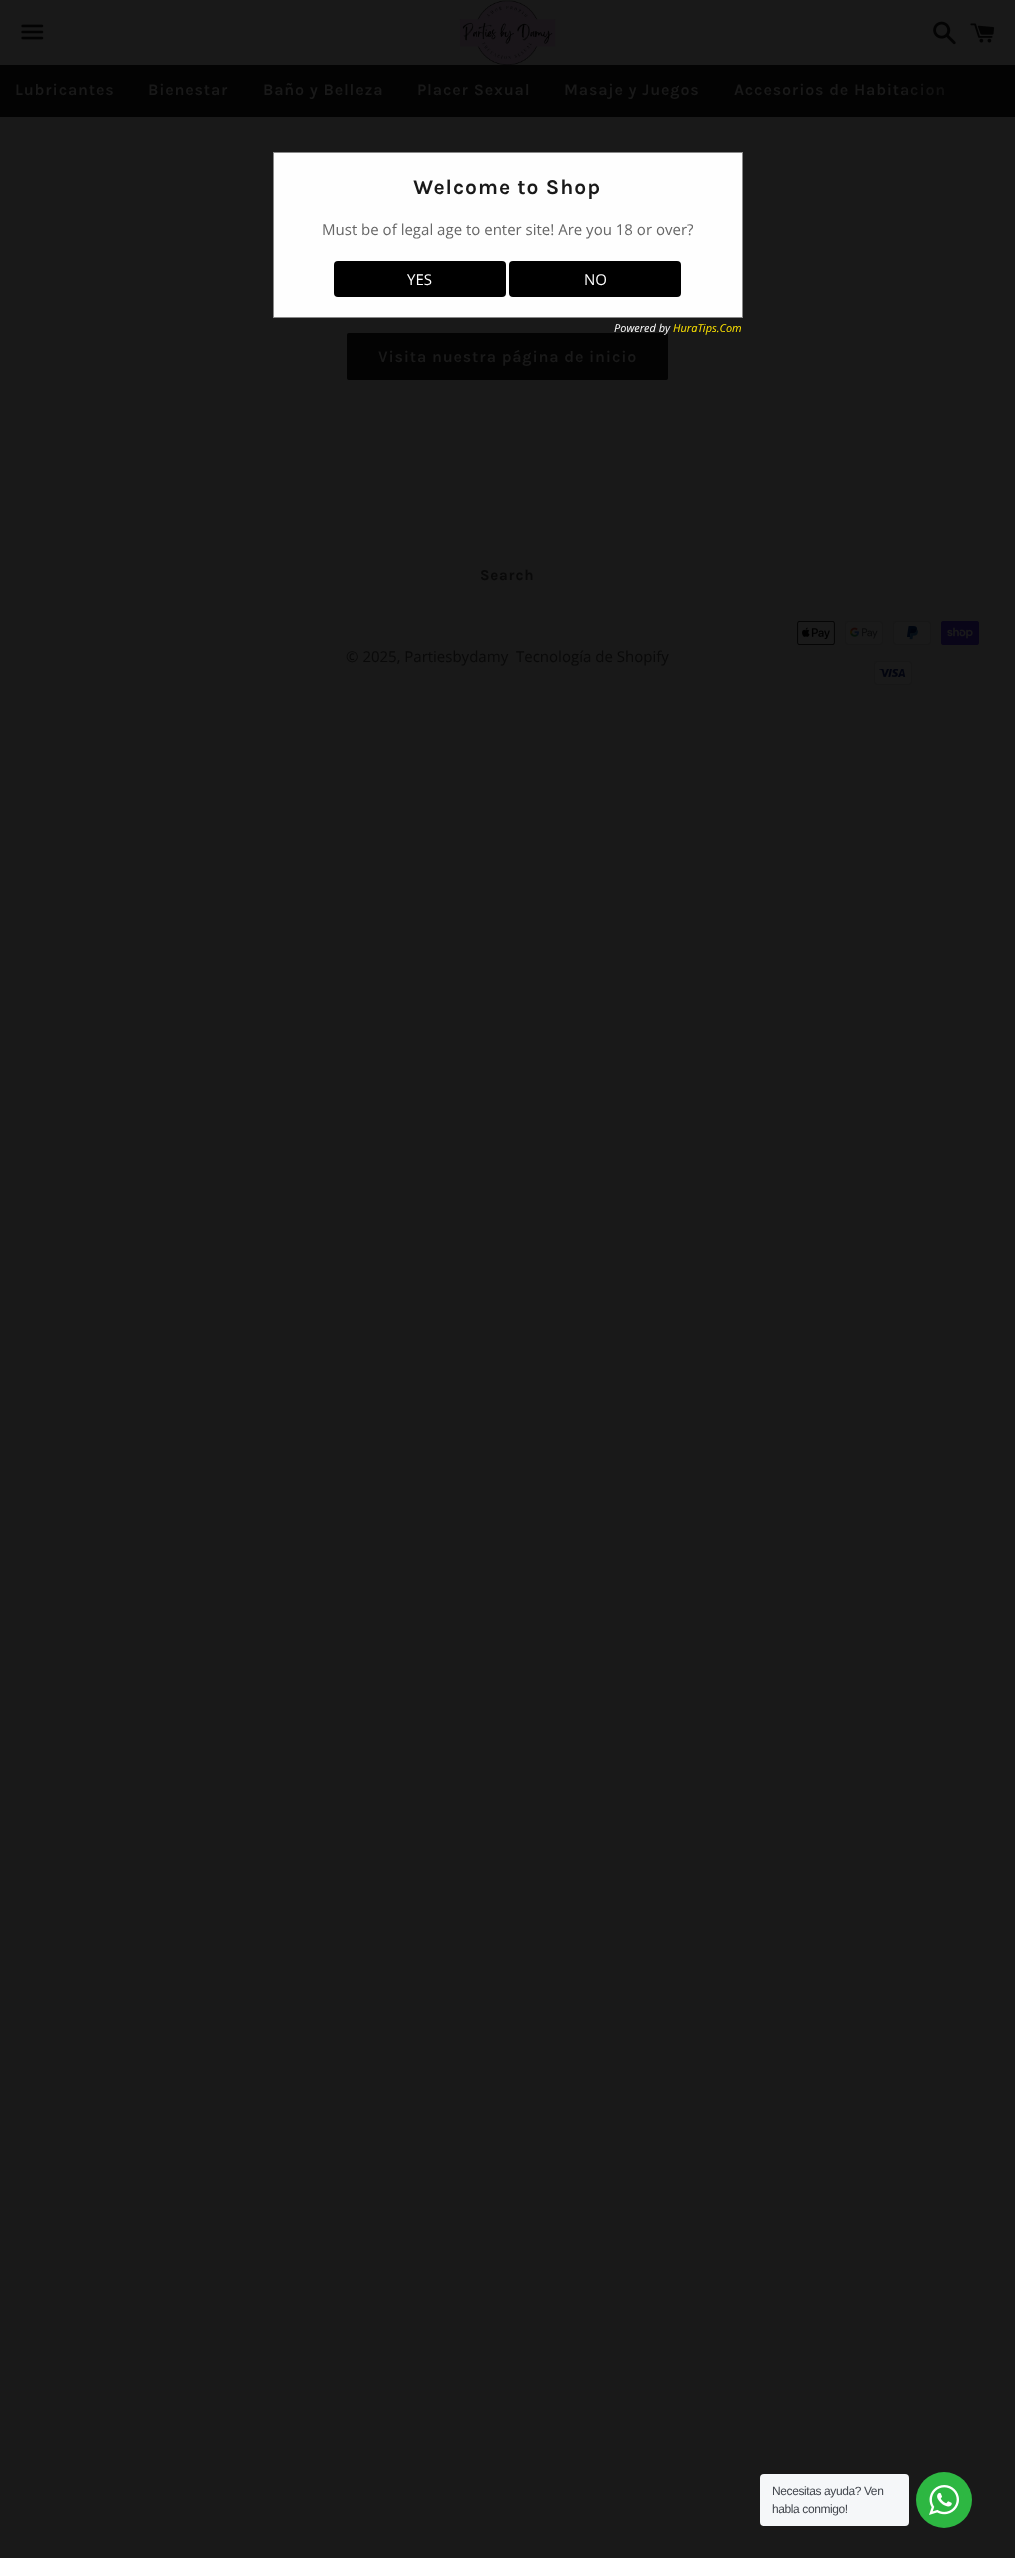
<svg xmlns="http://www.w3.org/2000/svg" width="1015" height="2558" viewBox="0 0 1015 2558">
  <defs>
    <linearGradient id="g1" gradientUnits="userSpaceOnUse" x1="890" y1="91" x2="1015" y2="91"><stop offset="0" stop-color="#030303" stop-opacity="0"/><stop offset="1" stop-color="#030303"/></linearGradient>
  </defs>
  <rect width="100%" height="100%" fill="#191919"/>
  <image x="21" y="24" width="23" height="16" href="img1.png"/>
  <image x="459" y="0" width="97" height="65" href="img2.png"/>
  <image x="933" y="21" width="23" height="24" href="img3.png"/>
  <image x="970" y="23" width="25" height="20" href="img4.png"/>
  <rect x="0" y="65" width="1014" height="52" fill="#030303"/>
  <text x="15" y="95" font-family="Karla" font-size="16" font-weight="bold" letter-spacing="0.8" fill="#191919">Lubricantes</text>
  <text x="148" y="95" font-family="Karla" font-size="16" font-weight="bold" letter-spacing="0.8" fill="#191919">Bienestar</text>
  <text x="263" y="95" font-family="Karla" font-size="16" font-weight="bold" letter-spacing="0.8" fill="#191919">Baño y Belleza</text>
  <text x="417" y="95" font-family="Karla" font-size="16" font-weight="bold" letter-spacing="0.8" fill="#191919">Placer Sexual</text>
  <text x="564" y="95" font-family="Karla" font-size="16" font-weight="bold" letter-spacing="0.8" fill="#191919">Masaje y Juegos</text>
  <text x="734" y="95" font-family="Karla" font-size="16" font-weight="bold" letter-spacing="0.8" fill="#191919">Accesorios de Habitacion</text>
  <rect x="903" y="65" width="112" height="52" fill="url(#g1)"/>
  <rect x="347" y="333" width="321" height="47" rx="2" fill="#030303"/>
  <text x="378" y="362" font-family="Karla" font-size="16" font-weight="bold" letter-spacing="0.8" fill="#191919">Visita nuestra página de inicio</text>
  <text x="480" y="580" font-family="Karla" font-size="15" font-weight="bold" letter-spacing="0.75" fill="#090909">Search</text>
  <text x="346" y="662" font-family="Open Sans" font-size="15" fill="#090909">© 2025, Partiesbydamy</text>
  <text x="516" y="662" font-family="Open Sans" font-size="15" fill="#090909">Tecnología de Shopify</text>
  <image x="797" y="621" width="38" height="24" href="img5.png"/>
  <image x="845" y="621" width="38" height="24" href="img6.png"/>
  <image x="893" y="621" width="38" height="24" href="img7.png"/>
  <image x="941" y="621" width="38" height="24" href="img8.png"/>
  <image x="874" y="661" width="38" height="24" href="img9.png"/>
  <rect x="273.5" y="152.5" width="469" height="165" fill="#fefefe" stroke="#888888"/>
  <text x="413" y="194" font-family="Karla" font-size="21" font-weight="bold" letter-spacing="1" fill="#191919">Welcome to Shop</text>
  <text x="322" y="235" font-family="Open Sans" font-size="15" fill="#666666">Must be of legal age to enter site! Are you 18 or over?</text>
  <rect x="334" y="261" width="172" height="36" rx="4" fill="#000000"/>
  <text x="407" y="285" font-family="Open Sans" font-size="15" fill="#ffffff">YES</text>
  <rect x="509" y="261" width="172" height="36" rx="4" fill="#000000"/>
  <text x="584" y="285" font-family="Open Sans" font-size="15" fill="#ffffff">NO</text>
  <text x="614" y="332" font-family="Open Sans" font-size="11" font-style="italic" fill="#ffffff">Powered by</text>
  <text x="673" y="332" font-family="Open Sans" font-size="11" font-style="italic" fill="#ffe400">HuraTips.Com</text>
  <rect x="760" y="2474" width="149" height="52" rx="4" fill="#f5f7f9"/>
  <text x="772" y="2495" font-family="Liberation Sans" font-size="12" letter-spacing="-0.4" fill="#43474e">Necesitas ayuda? Ven</text>
  <text x="772" y="2513" font-family="Liberation Sans" font-size="12" letter-spacing="-0.4" fill="#43474e">habla conmigo!</text>
  <circle cx="944" cy="2500" r="28" fill="#2db742"/>
  <image x="929" y="2485" width="30" height="30" href="img10.png"/>
</svg>
